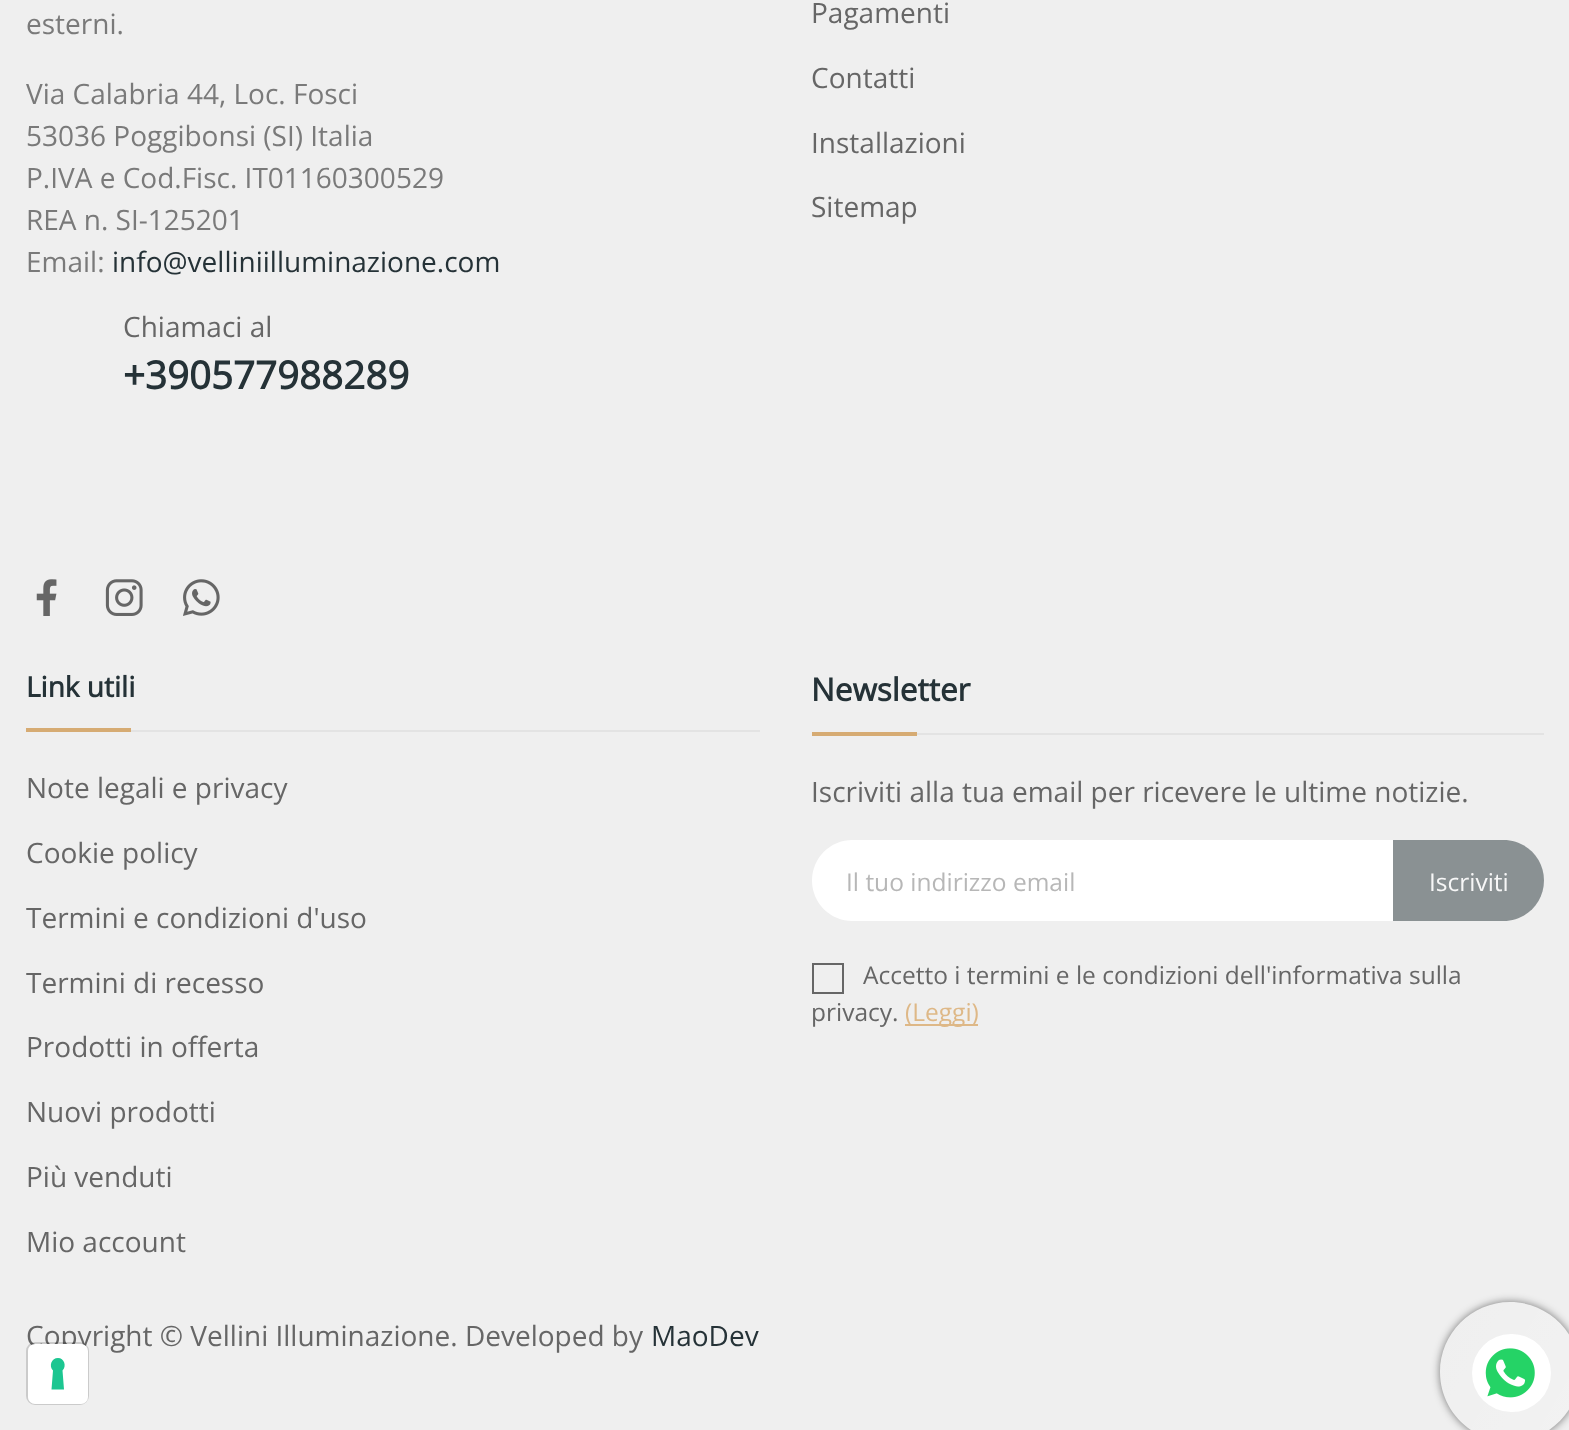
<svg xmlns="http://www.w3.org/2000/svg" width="1569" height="1430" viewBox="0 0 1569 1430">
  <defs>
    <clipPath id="clip1"><path d="M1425 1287H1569V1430H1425ZM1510 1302C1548.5 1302 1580 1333.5 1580 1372C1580 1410.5 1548.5 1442 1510 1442C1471.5 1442 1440 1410.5 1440 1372C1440 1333.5 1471.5 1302 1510 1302Z" clip-rule="evenodd"/></clipPath>
    <filter id="blur1" x="-50%" y="-200%" width="200%" height="500%"><feGaussianBlur stdDeviation="4.5"/></filter>
    <linearGradient id="g1" gradientUnits="userSpaceOnUse" x1="1427" y1="1324" x2="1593" y2="1420"><stop offset="0" stop-color="#ffffff" stop-opacity="0"/><stop offset="1" stop-color="#ffffff" stop-opacity="0.2"/></linearGradient>
  </defs>
  <rect width="100%" height="100%" fill="#efefef"/>
  <text x="26" y="34" font-family="Open Sans" font-size="28" fill="#7a7a7a">esterni.</text>
  <text x="26" y="104" font-family="Open Sans" font-size="28" fill="#7a7a7a">Via Calabria 44, Loc. Fosci</text>
  <text x="26" y="146" font-family="Open Sans" font-size="28" fill="#7a7a7a">53036 Poggibonsi (SI) Italia</text>
  <text x="26" y="188" font-family="Open Sans" font-size="28" fill="#7a7a7a">P.IVA e Cod.Fisc. IT01160300529</text>
  <text x="26" y="230" font-family="Open Sans" font-size="28" fill="#7a7a7a">REA n. SI-125201</text>
  <text x="26" y="272" font-family="Open Sans" font-size="28" fill="#7a7a7a">Email:</text>
  <text x="112" y="272" font-family="Open Sans" font-size="28" fill="#253237">info@velliniilluminazione.com</text>
  <text x="123" y="337" font-family="Open Sans" font-size="28" fill="#666666">Chiamaci al</text>
  <text x="123" y="389" font-family="Open Sans" font-size="38.5" font-weight="bold" fill="#253237">+390577988289</text>
  <image x="36" y="579" width="21" height="37" href="img1.png"/>
  <image x="105" y="579" width="38" height="37" href="img2.png"/>
  <image x="183" y="579" width="37" height="37" href="img3.png"/>
  <text x="811" y="23" font-family="Open Sans" font-size="28" fill="#666666">Pagamenti</text>
  <text x="811" y="88" font-family="Open Sans" font-size="28" fill="#666666">Contatti</text>
  <text x="811" y="153" font-family="Open Sans" font-size="28" fill="#666666">Installazioni</text>
  <text x="811" y="217" font-family="Open Sans" font-size="28" fill="#666666">Sitemap</text>
  <rect x="131" y="730" width="629" height="2" fill="#e3e3e3"/>
  <text x="26" y="697" font-family="Open Sans" font-size="28" font-weight="bold" fill="#253237">Link utili</text>
  <rect x="26" y="728" width="105" height="4" fill="#d6ab73"/>
  <text x="26" y="798" font-family="Open Sans" font-size="28" fill="#666666">Note legali e privacy</text>
  <text x="26" y="863" font-family="Open Sans" font-size="28" fill="#666666">Cookie policy</text>
  <text x="26" y="928" font-family="Open Sans" font-size="28" fill="#666666">Termini e condizioni d'uso</text>
  <text x="26" y="993" font-family="Open Sans" font-size="28" fill="#666666">Termini di recesso</text>
  <text x="26" y="1057" font-family="Open Sans" font-size="28" fill="#666666">Prodotti in offerta</text>
  <text x="26" y="1122" font-family="Open Sans" font-size="28" fill="#666666">Nuovi prodotti</text>
  <text x="26" y="1187" font-family="Open Sans" font-size="28" fill="#666666">Più venduti</text>
  <text x="26" y="1252" font-family="Open Sans" font-size="28" fill="#666666">Mio account</text>
  <rect x="917" y="733" width="627" height="2" fill="#e3e3e3"/>
  <text x="811" y="701" font-family="Open Sans" font-size="31.5" font-weight="bold" fill="#253237">Newsletter</text>
  <rect x="812" y="732" width="105" height="4" fill="#d6ab73"/>
  <text x="811" y="802" font-family="Open Sans" font-size="28" fill="#666666">Iscriviti alla tua email per ricevere le ultime notizie.</text>
  <path d="M852.5 840H1393V921H852.5C830 921 812 903 812 880.5C812 858 830 840 852.5 840Z" fill="#ffffff"/>
  <text x="846" y="891" font-family="Open Sans" font-size="24.5" fill="#b7b7b7">Il tuo indirizzo email</text>
  <path d="M1393 840H1503.5C1526 840 1544 858 1544 880.5C1544 903 1526 921 1503.5 921H1393Z" fill="#8a9193"/>
  <text x="1429" y="891" font-family="Open Sans" font-size="24.5" fill="#f7f7f7">Iscriviti</text>
  <rect x="813" y="964" width="30" height="29" fill="none" stroke="#666666" stroke-width="2"/>
  <text x="863" y="984" font-family="Open Sans" font-size="24.5" fill="#666666">Accetto i termini e le condizioni dell'informativa sulla</text>
  <text x="811" y="1021" font-family="Open Sans" font-size="24.5" fill="#666666">privacy.</text>
  <rect x="905" y="1024" width="73" height="2" fill="#deb887"/>
  <text x="905" y="1021" font-family="Open Sans" font-size="24.5" fill="#deb887">(Leggi)</text>
  <text x="26" y="1346" font-family="Open Sans" font-size="28" fill="#666666">Copyright © Vellini Illuminazione. Developed by</text>
  <text x="651" y="1346" font-family="Open Sans" font-size="28" fill="#253237">MaoDev</text>
  <rect x="27" y="1343" width="61" height="61" rx="8" fill="none" stroke="#000000" stroke-opacity="0.15" stroke-width="2"/>
  <rect x="28" y="1344" width="60" height="60" rx="7" fill="#ffffff"/>
  <path d="M58 1358C64 1358 67 1366 62.5 1370.5L64 1389.5H51.5L53 1370.5C48.5 1366 51.5 1358 58 1358Z" fill="#1cc691" fill-rule="evenodd"/>
  <rect x="1472" y="1334" width="79" height="78" rx="39" fill="#ffffff"/>
  <g clip-path="url(#clip1)">
    <rect x="1440" y="1302" width="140" height="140" rx="70" fill="#000000" fill-opacity="0.5" filter="url(#blur1)"/>
  </g>
  <circle cx="1510" cy="1372" r="70" fill="url(#g1)"/>
  <image x="1485" y="1348" width="50" height="50" href="img4.png"/>
</svg>
